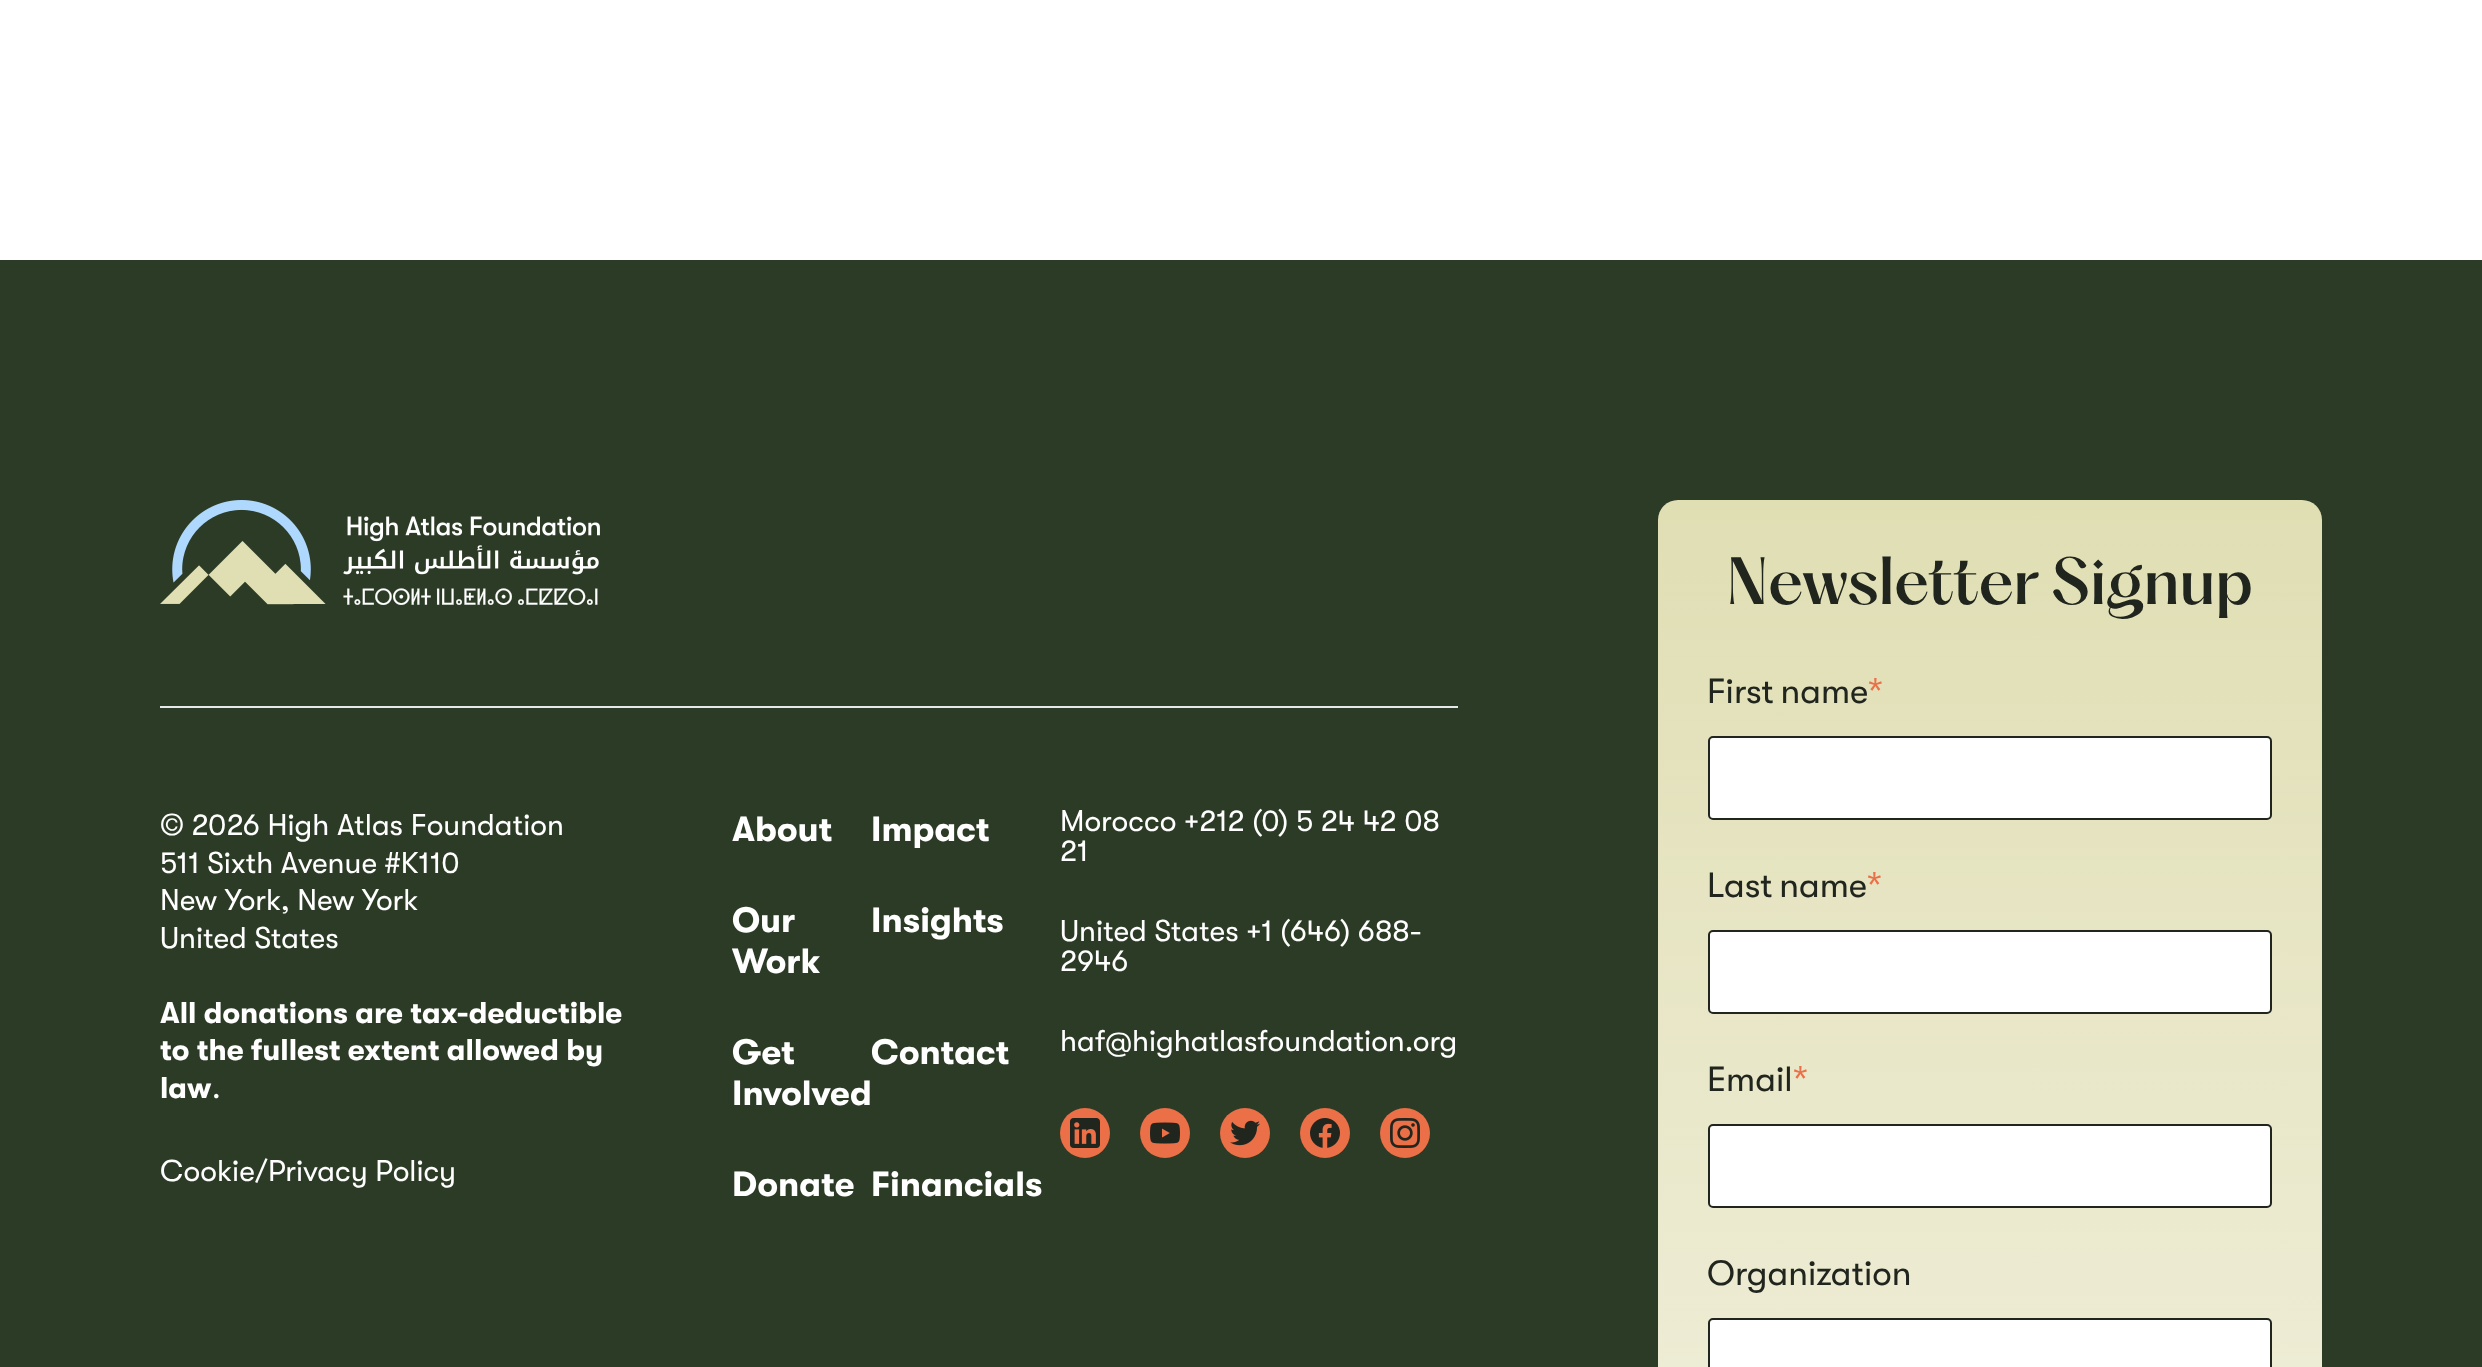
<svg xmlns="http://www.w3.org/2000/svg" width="2482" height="1367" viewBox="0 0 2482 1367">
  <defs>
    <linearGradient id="g1" gradientUnits="userSpaceOnUse" x1="1990" y1="500" x2="1990" y2="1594"><stop offset="0" stop-color="#e0deb3"/><stop offset="1" stop-color="#f1f0dd"/></linearGradient>
  </defs>
  <rect width="100%" height="100%" fill="#ffffff"/>
  <rect x="0" y="260" width="2482" height="1107" fill="#2c3b26"/>
  <image x="160" y="500" width="440" height="105" href="img1.png"/>
  <rect x="160" y="706" width="1298" height="2" fill="#e5e7eb"/>
  <text x="160" y="835" font-family="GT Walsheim" font-size="30" fill="#ffffff">© 2026 High Atlas Foundation</text>
  <text x="160" y="873" font-family="GT Walsheim" font-size="30" fill="#ffffff">511 Sixth Avenue #K110</text>
  <text x="160" y="910" font-family="GT Walsheim" font-size="30" fill="#ffffff">New York, New York</text>
  <text x="160" y="948" font-family="GT Walsheim" font-size="30" fill="#ffffff">United States</text>
  <text x="160" y="1023" font-family="GT Walsheim" font-size="30" font-weight="bold" fill="#ffffff">All donations are tax-deductible</text>
  <text x="160" y="1060" font-family="GT Walsheim" font-size="30" font-weight="bold" fill="#ffffff">to the fullest extent allowed by</text>
  <text x="160" y="1098" font-family="GT Walsheim" font-size="30" font-weight="bold" fill="#ffffff">law</text>
  <text x="212" y="1098" font-family="GT Walsheim" font-size="30" fill="#ffffff">.</text>
  <text x="160" y="1181" font-family="GT Walsheim" font-size="30" fill="#ffffff">Cookie/Privacy Policy</text>
  <text x="732" y="841" font-family="GT Walsheim" font-size="35" font-weight="bold" fill="#ffffff">About</text>
  <text x="871" y="841" font-family="GT Walsheim" font-size="35" font-weight="bold" fill="#ffffff">Impact</text>
  <text x="732" y="932" font-family="GT Walsheim" font-size="35" font-weight="bold" fill="#ffffff">Our</text>
  <text x="732" y="973" font-family="GT Walsheim" font-size="35" font-weight="bold" fill="#ffffff">Work</text>
  <text x="871" y="932" font-family="GT Walsheim" font-size="35" font-weight="bold" fill="#ffffff">Insights</text>
  <text x="732" y="1064" font-family="GT Walsheim" font-size="35" font-weight="bold" fill="#ffffff">Get</text>
  <text x="732" y="1105" font-family="GT Walsheim" font-size="35" font-weight="bold" fill="#ffffff">Involved</text>
  <text x="871" y="1064" font-family="GT Walsheim" font-size="35" font-weight="bold" fill="#ffffff">Contact</text>
  <text x="732" y="1196" font-family="GT Walsheim" font-size="35" font-weight="bold" fill="#ffffff">Donate</text>
  <text x="871" y="1196" font-family="GT Walsheim" font-size="35" font-weight="bold" fill="#ffffff">Financials</text>
  <text x="1060" y="831" font-family="GT Walsheim" font-size="30" fill="#ffffff">Morocco +212 (0) 5 24 42 08</text>
  <text x="1060" y="861" font-family="GT Walsheim" font-size="30" fill="#ffffff">21</text>
  <text x="1060" y="941" font-family="GT Walsheim" font-size="30" fill="#ffffff">United States +1 (646) 688-</text>
  <text x="1060" y="971" font-family="GT Walsheim" font-size="30" fill="#ffffff">2946</text>
  <text x="1060" y="1051" font-family="GT Walsheim" font-size="30" fill="#ffffff">haf@highatlasfoundation.org</text>
  <circle cx="1085" cy="1133" r="25" fill="#eb7047"/>
  <image x="1070" y="1118" width="30" height="30" href="img2.png"/>
  <circle cx="1165" cy="1133" r="25" fill="#eb7047"/>
  <image x="1150" y="1122" width="30" height="22" href="img3.png"/>
  <circle cx="1245" cy="1133" r="25" fill="#eb7047"/>
  <image x="1230" y="1120" width="30" height="26" href="img4.png"/>
  <circle cx="1325" cy="1133" r="25" fill="#eb7047"/>
  <image x="1310" y="1118" width="30" height="30" href="img5.png"/>
  <circle cx="1405" cy="1133" r="25" fill="#eb7047"/>
  <image x="1390" y="1118" width="30" height="30" href="img6.png"/>
  <rect x="1658" y="500" width="664" height="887" rx="20" fill="url(#g1)"/>
  <text x="1726" y="604" font-family="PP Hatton" font-size="60" font-weight="500" fill="#20251e">Newsletter Signup</text>
  <text x="1707" y="703" word-spacing="-2" font-family="GT Walsheim" font-size="35" fill="#20251e">First name</text>
  <text x="1868" y="703" font-family="GT Walsheim" font-size="35" fill="#eb7047">*</text>
  <rect x="1709" y="737" width="562" height="82" rx="4" fill="#ffffff" stroke="#20251e" stroke-width="2"/>
  <text x="1707" y="897" word-spacing="-2" font-family="GT Walsheim" font-size="35" fill="#20251e">Last name</text>
  <text x="1867" y="897" font-family="GT Walsheim" font-size="35" fill="#eb7047">*</text>
  <rect x="1709" y="931" width="562" height="82" rx="4" fill="#ffffff" stroke="#20251e" stroke-width="2"/>
  <text x="1707" y="1091" font-family="GT Walsheim" font-size="35" fill="#20251e">Email</text>
  <text x="1793" y="1091" font-family="GT Walsheim" font-size="35" fill="#eb7047">*</text>
  <rect x="1709" y="1125" width="562" height="82" rx="4" fill="#ffffff" stroke="#20251e" stroke-width="2"/>
  <text x="1707" y="1285" font-family="GT Walsheim" font-size="35" fill="#20251e">Organization</text>
  <rect x="1709" y="1319" width="562" height="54" rx="4" fill="#ffffff" stroke="#20251e" stroke-width="2"/>
</svg>
